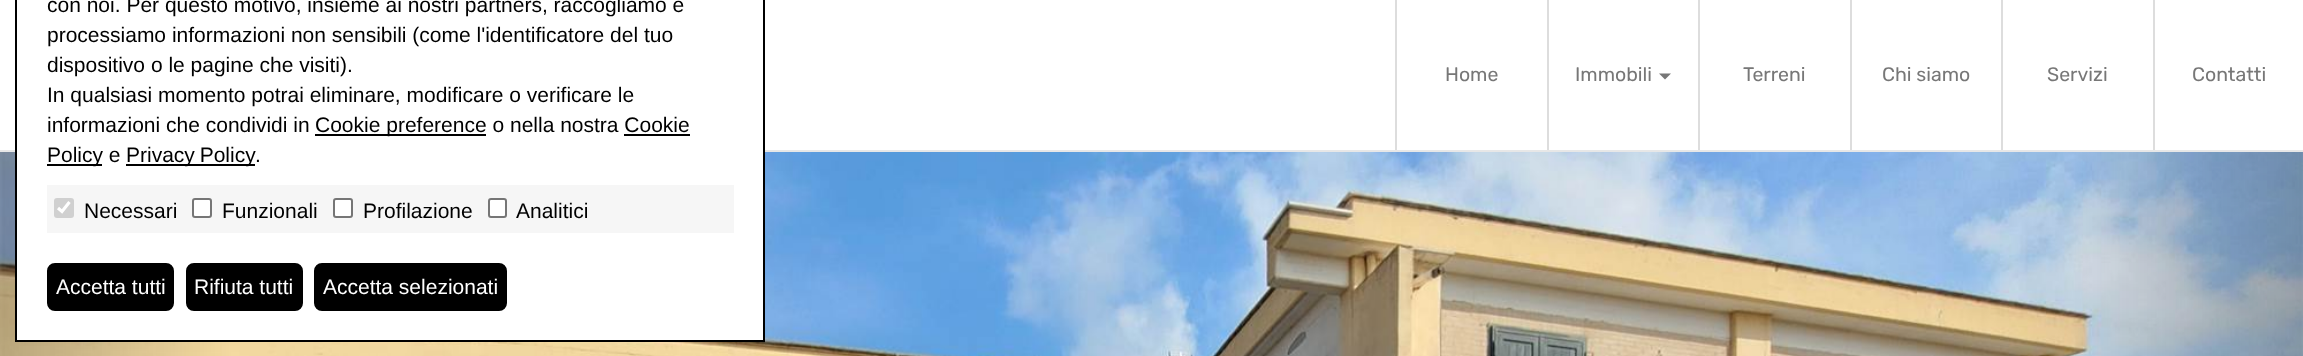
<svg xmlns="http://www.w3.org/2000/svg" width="2303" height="356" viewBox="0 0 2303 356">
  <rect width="100%" height="100%" fill="#ffffff"/>
  <rect x="0" y="150" width="2303" height="2" fill="#e7e7e7"/>
  <image x="0" y="152" width="2303" height="204" href="img1.png"/>
  <rect x="17" y="150" width="746" height="190" fill="#ffffff"/>
  <rect x="16" y="-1" width="748" height="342" fill="none" stroke="#000000" stroke-width="2"/>
  <text x="47" y="12" font-family="Liberation Sans" font-size="21" fill="#000000">con noi. Per questo motivo, insieme ai nostri partners, raccogliamo e</text>
  <text x="47" y="42" font-family="Liberation Sans" font-size="21" fill="#000000">processiamo informazioni non sensibili (come l'identificatore del tuo</text>
  <text x="47" y="72" font-family="Liberation Sans" font-size="21" fill="#000000">dispositivo o le pagine che visiti).</text>
  <text x="47" y="102" font-family="Liberation Sans" font-size="21" fill="#000000">In qualsiasi momento potrai eliminare, modificare o verificare le</text>
  <text x="47" y="132" font-family="Liberation Sans" font-size="21" fill="#000000">informazioni che condividi in</text>
  <rect x="315" y="134" width="171" height="2" fill="#000000"/>
  <text x="315" y="132" font-family="Liberation Sans" font-size="21" fill="#000000">Cookie preference o nella nostra Cookie</text>
  <rect x="47" y="164" width="55" height="2" fill="#000000"/>
  <text x="47" y="162" font-family="Liberation Sans" font-size="21" fill="#000000">Policy e</text>
  <rect x="624" y="134" width="66" height="2" fill="#000000"/>
  <rect x="126" y="164" width="129" height="2" fill="#000000"/>
  <text x="126" y="162" word-spacing="-1" font-family="Liberation Sans" font-size="21" fill="#000000">Privacy Policy</text>
  <text x="255" y="162" font-family="Liberation Sans" font-size="21" fill="#000000">.</text>
  <rect x="47" y="185" width="687" height="48" fill="#f6f6f6"/>
  <rect x="54" y="198" width="20" height="20" rx="3" fill="#d0d0d0"/>
  <path d="M58 208L62 211.5L69.5 202" fill="none" stroke="#ffffff" stroke-width="3.1"/>
  <text x="84" y="218" font-family="Liberation Sans" font-size="21" fill="#000000">Necessari</text>
  <rect x="193" y="199" width="18" height="18" rx="2" fill="#ffffff" stroke="#767676" stroke-width="2"/>
  <text x="222" y="218" font-family="Liberation Sans" font-size="21" fill="#000000">Funzionali</text>
  <rect x="334" y="199" width="18" height="18" rx="2" fill="#ffffff" stroke="#767676" stroke-width="2"/>
  <text x="363" y="218" font-family="Liberation Sans" font-size="21" fill="#000000">Profilazione</text>
  <rect x="489" y="199" width="17" height="18" rx="2" fill="#ffffff" stroke="#767676" stroke-width="2"/>
  <text x="516" y="218" font-family="Liberation Sans" font-size="21" fill="#000000">Analitici</text>
  <rect x="48" y="264" width="125" height="46" rx="7" fill="#000000" stroke="#000000" stroke-width="2"/>
  <text x="56" y="294" font-family="Liberation Sans" font-size="21" fill="#ffffff">Accetta tutti</text>
  <rect x="187" y="264" width="115" height="46" rx="7" fill="#000000" stroke="#000000" stroke-width="2"/>
  <text x="194" y="294" font-family="Liberation Sans" font-size="21" fill="#ffffff">Rifiuta tutti</text>
  <rect x="315" y="264" width="191" height="46" rx="7" fill="#000000" stroke="#000000" stroke-width="2"/>
  <text x="323" y="294" font-family="Liberation Sans" font-size="21" fill="#ffffff">Accetta selezionati</text>
  <rect x="1395" y="0" width="2" height="150" fill="#dddddd"/>
  <text x="1445" y="81" font-family="Rubik" font-size="19.5" fill="#777777">Home</text>
  <rect x="1547" y="0" width="2" height="150" fill="#dddddd"/>
  <text x="1575" y="81" font-family="Rubik" font-size="19.5" fill="#777777">Immobili</text>
  <path d="M1659 73.5H1671L1665 79.5Z" fill="#777777"/>
  <rect x="1698" y="0" width="2" height="150" fill="#dddddd"/>
  <text x="1743" y="81" font-family="Rubik" font-size="19.5" fill="#777777">Terreni</text>
  <rect x="1850" y="0" width="2" height="150" fill="#dddddd"/>
  <text x="1882" y="81" font-family="Rubik" font-size="19.5" fill="#777777">Chi siamo</text>
  <rect x="2001" y="0" width="2" height="150" fill="#dddddd"/>
  <text x="2047" y="81" font-family="Rubik" font-size="19.5" fill="#777777">Servizi</text>
  <rect x="2153" y="0" width="2" height="150" fill="#dddddd"/>
  <text x="2192" y="81" font-family="Rubik" font-size="19.5" fill="#777777">Contatti</text>
</svg>
